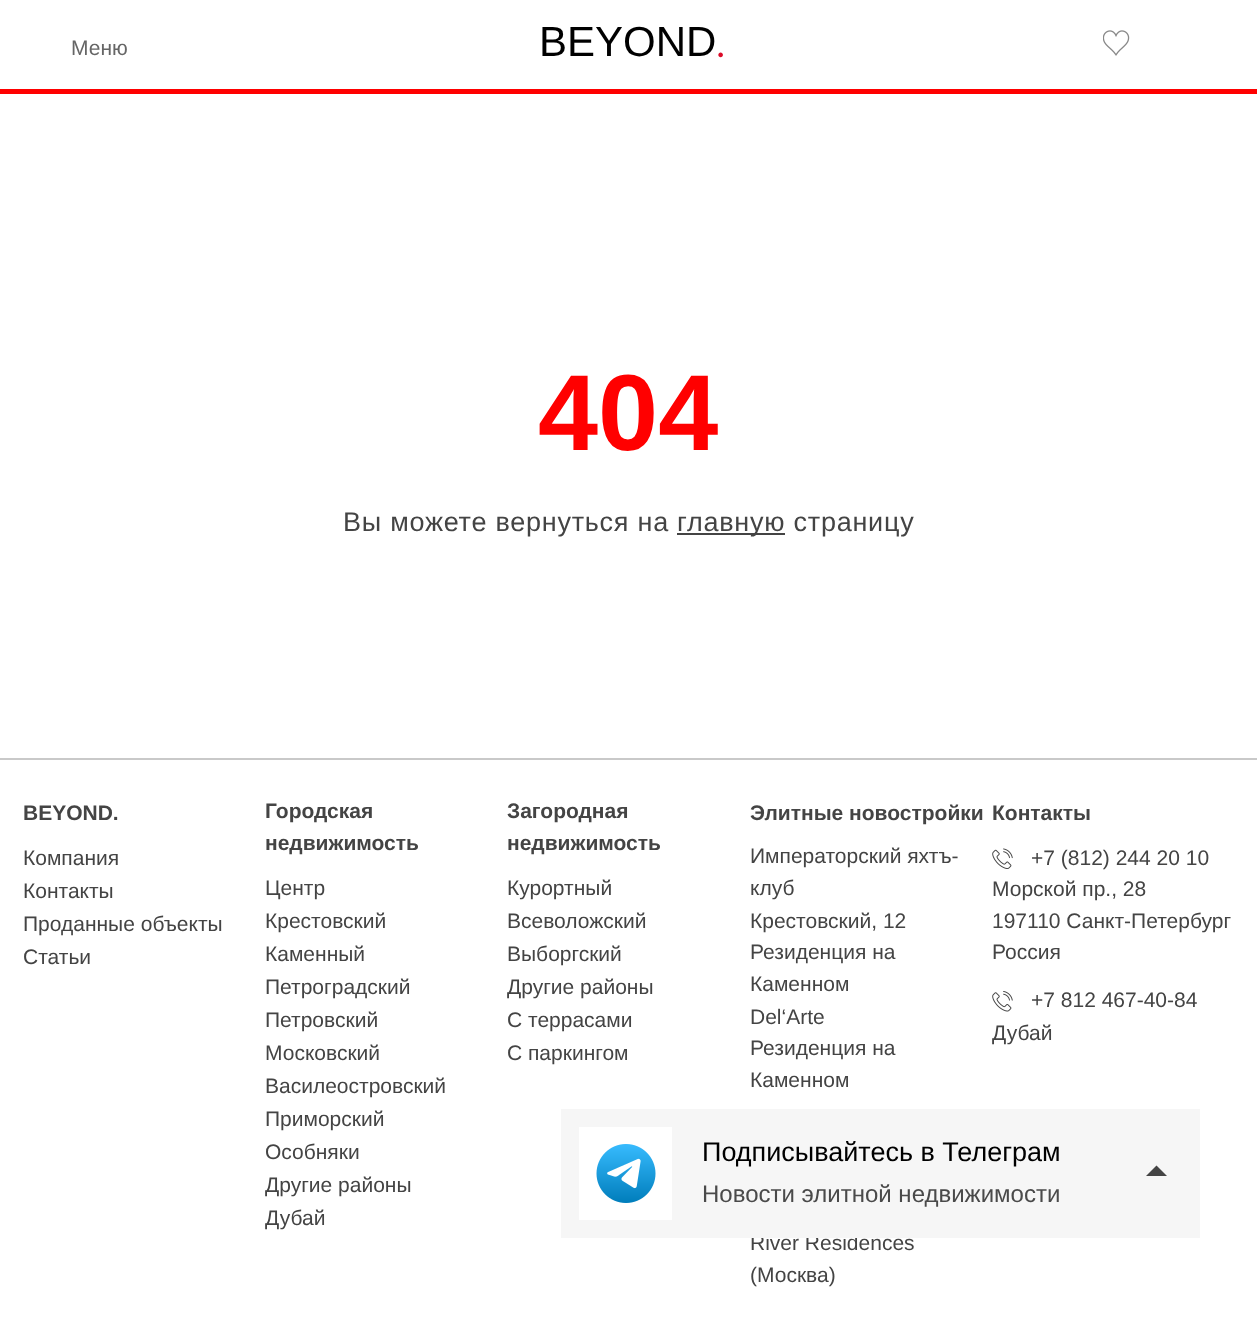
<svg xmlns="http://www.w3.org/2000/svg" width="1257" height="1327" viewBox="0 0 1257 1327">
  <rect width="100%" height="100%" fill="#ffffff"/>
  <text x="71" y="55" font-family="Liberation Sans" font-size="21" fill="#666666">Меню</text>
  <rect x="0" y="89" width="1257" height="5" fill="#ff0000"/>
  <text x="539" y="56" font-family="Liberation Sans" font-size="42" fill="#000000">BEYOND</text>
  <text x="716" y="57" font-family="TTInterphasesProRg" font-size="42" fill="#db0b28">.</text>
  <image x="1103" y="30" width="27" height="26" href="img1.png"/>
  <text x="538" y="450" font-family="Liberation Sans" font-size="108" font-weight="bold" fill="#ff0000">404</text>
  <text x="343" y="531" font-family="Liberation Sans" font-size="27" letter-spacing="0.75" fill="#444444">Вы можете вернуться на</text>
  <rect x="677" y="533" width="108" height="2" fill="#444444"/>
  <text x="677" y="531" font-family="Liberation Sans" font-size="27" letter-spacing="0.75" fill="#444444">главную страницу</text>
  <rect x="0" y="758" width="1257" height="2" fill="#c9c9c9"/>
  <text x="23" y="820" font-family="Liberation Sans" font-size="21" font-weight="bold" fill="#444444">BEYOND.</text>
  <text x="23" y="865" font-family="Liberation Sans" font-size="21" fill="#444444">Компания</text>
  <text x="23" y="898" font-family="Liberation Sans" font-size="21" fill="#444444">Контакты</text>
  <text x="23" y="931" font-family="Liberation Sans" font-size="21" fill="#444444">Проданные объекты</text>
  <text x="23" y="964" font-family="Liberation Sans" font-size="21" fill="#444444">Статьи</text>
  <text x="265" y="818" font-family="Liberation Sans" font-size="21" font-weight="bold" fill="#444444">Городская</text>
  <text x="265" y="850" font-family="Liberation Sans" font-size="21" font-weight="bold" fill="#444444">недвижимость</text>
  <text x="265" y="895" font-family="Liberation Sans" font-size="21" fill="#444444">Центр</text>
  <text x="265" y="928" font-family="Liberation Sans" font-size="21" fill="#444444">Крестовский</text>
  <text x="265" y="961" font-family="Liberation Sans" font-size="21" fill="#444444">Каменный</text>
  <text x="265" y="994" font-family="Liberation Sans" font-size="21" fill="#444444">Петроградский</text>
  <text x="265" y="1027" font-family="Liberation Sans" font-size="21" fill="#444444">Петровский</text>
  <text x="265" y="1060" font-family="Liberation Sans" font-size="21" fill="#444444">Московский</text>
  <text x="265" y="1093" font-family="Liberation Sans" font-size="21" fill="#444444">Василеостровский</text>
  <text x="265" y="1126" font-family="Liberation Sans" font-size="21" fill="#444444">Приморский</text>
  <text x="265" y="1159" font-family="Liberation Sans" font-size="21" fill="#444444">Особняки</text>
  <text x="265" y="1192" font-family="Liberation Sans" font-size="21" fill="#444444">Другие районы</text>
  <text x="265" y="1225" font-family="Liberation Sans" font-size="21" fill="#444444">Дубай</text>
  <text x="507" y="818" font-family="Liberation Sans" font-size="21" font-weight="bold" fill="#444444">Загородная</text>
  <text x="507" y="850" font-family="Liberation Sans" font-size="21" font-weight="bold" fill="#444444">недвижимость</text>
  <text x="507" y="895" font-family="Liberation Sans" font-size="21" fill="#444444">Курортный</text>
  <text x="507" y="928" font-family="Liberation Sans" font-size="21" fill="#444444">Всеволожский</text>
  <text x="507" y="961" font-family="Liberation Sans" font-size="21" fill="#444444">Выборгский</text>
  <text x="507" y="994" font-family="Liberation Sans" font-size="21" fill="#444444">Другие районы</text>
  <text x="507" y="1027" font-family="Liberation Sans" font-size="21" fill="#444444">С террасами</text>
  <text x="507" y="1060" font-family="Liberation Sans" font-size="21" fill="#444444">С паркингом</text>
  <text x="750" y="820" font-family="Liberation Sans" font-size="21" font-weight="bold" fill="#444444">Элитные новостройки</text>
  <text x="750" y="863" font-family="Liberation Sans" font-size="21" fill="#444444">Императорский яхтъ-</text>
  <text x="750" y="895" font-family="Liberation Sans" font-size="21" fill="#444444">клуб</text>
  <text x="750" y="928" font-family="Liberation Sans" font-size="21" fill="#444444">Крестовский, 12</text>
  <text x="750" y="959" font-family="Liberation Sans" font-size="21" fill="#444444">Резиденция на</text>
  <text x="750" y="991" font-family="Liberation Sans" font-size="21" fill="#444444">Каменном</text>
  <text x="750" y="1024" font-family="Liberation Sans" font-size="21" fill="#444444">Del‘Arte</text>
  <text x="750" y="1055" font-family="Liberation Sans" font-size="21" fill="#444444">Резиденция на</text>
  <text x="750" y="1087" font-family="Liberation Sans" font-size="21" fill="#444444">Каменном</text>
  <text x="750" y="1250" font-family="Liberation Sans" font-size="21" fill="#444444">River Residences</text>
  <text x="750" y="1282" font-family="Liberation Sans" font-size="21" fill="#444444">(Москва)</text>
  <text x="992" y="820" font-family="Liberation Sans" font-size="21" font-weight="bold" fill="#444444">Контакты</text>
  <image x="992" y="848" width="21" height="21" href="img2.png"/>
  <text x="1031" y="865" font-family="Liberation Sans" font-size="21" fill="#444444">+7 (812) 244 20 10</text>
  <text x="992" y="896" font-family="Liberation Sans" font-size="21" fill="#444444">Морской пр., 28</text>
  <text x="992" y="928" font-family="Liberation Sans" font-size="21" fill="#444444">197110 Санкт-Петербург</text>
  <text x="992" y="959" font-family="Liberation Sans" font-size="21" fill="#444444">Росcия</text>
  <image x="992" y="991" width="21" height="21" href="img3.png"/>
  <text x="1031" y="1007" font-family="Liberation Sans" font-size="21" fill="#444444">+7 812 467-40-84</text>
  <text x="992" y="1040" font-family="Liberation Sans" font-size="21" fill="#444444">Дубай</text>
  <rect x="561" y="1109" width="639" height="129" fill="#f6f6f6"/>
  <rect x="579" y="1127" width="93" height="93" fill="#ffffff"/>
  <image x="596" y="1144" width="60" height="59" href="img4.png"/>
  <text x="702" y="1161" font-family="Liberation Sans" font-size="27" fill="#000000">Подписывайтесь в Телеграм</text>
  <path d="M1167 1176H1146L1156.5 1165.5Z" fill="#444444"/>
  <text x="702" y="1202" font-family="Liberation Sans" font-size="24" fill="#4a4a4a">Новости элитной недвижимости</text>
</svg>
